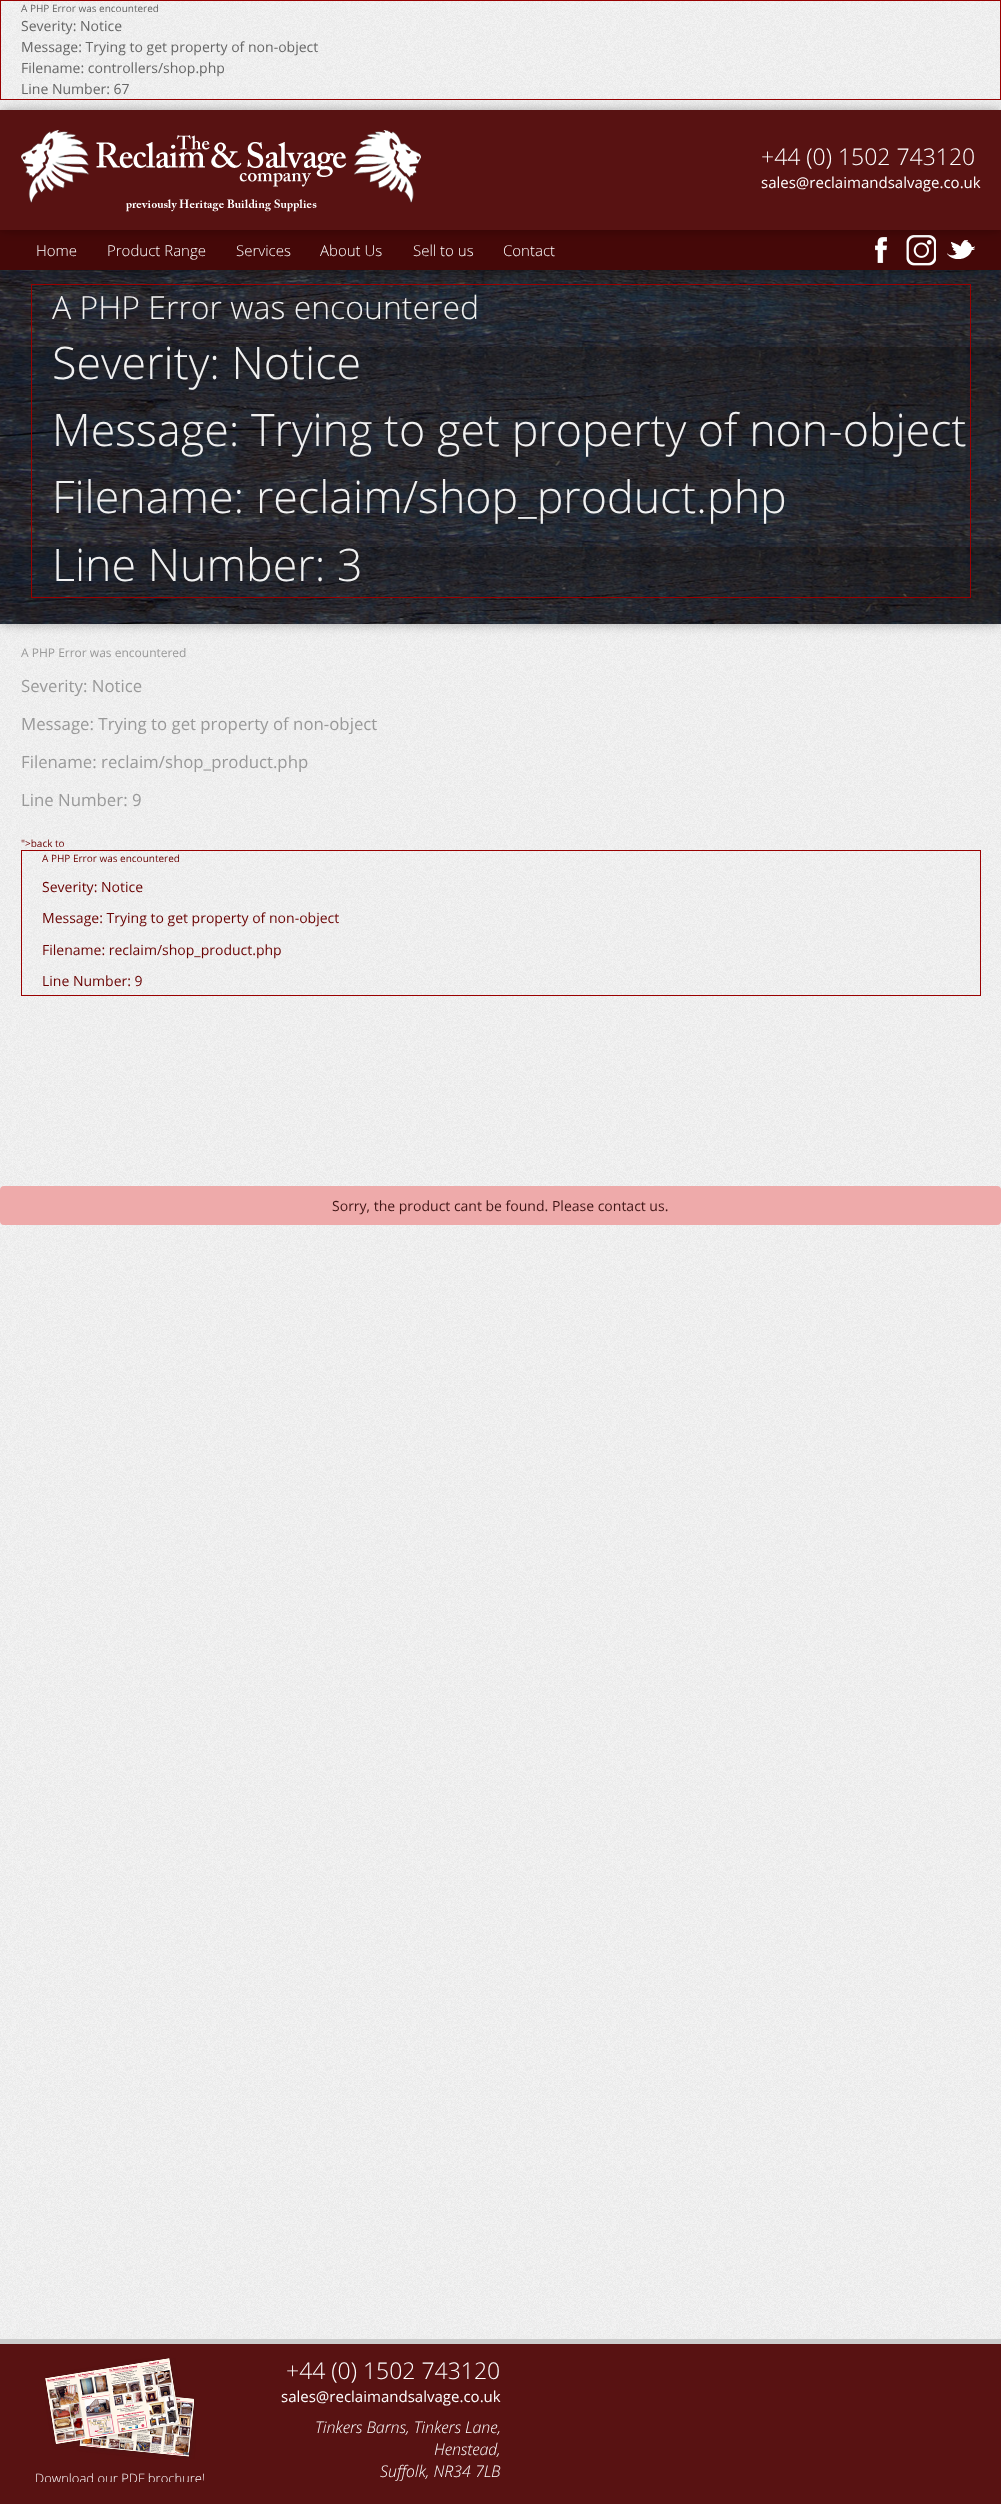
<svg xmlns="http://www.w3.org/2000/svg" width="1001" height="2504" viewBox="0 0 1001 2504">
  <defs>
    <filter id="blur1" x="-50%" y="-200%" width="200%" height="500%"><feGaussianBlur stdDeviation="6"/></filter>
    <clipPath id="clip1"><rect x="21" y="2344" width="960" height="138"/></clipPath>
  </defs>
  <rect width="100%" height="100%" fill="#ffffff"/>
  <image x="0" y="1" width="1001" height="2338" href="img1.png"/>
  <rect x="0.5" y="0.5" width="1000" height="99" fill="none" stroke="#990000"/>
  <text x="21" y="12" font-family="Open Sans" font-size="10" fill="#666666">A PHP Error was encountered</text>
  <text x="21" y="31" font-family="Open Sans" font-size="14" fill="#666666">Severity: Notice</text>
  <text x="21" y="52" font-family="Open Sans" font-size="14" fill="#666666">Message: Trying to get property of non-object</text>
  <text x="21" y="73" font-family="Open Sans" font-size="14" fill="#666666">Filename: controllers/shop.php</text>
  <text x="21" y="94" font-family="Open Sans" font-size="14" fill="#666666">Line Number: 67</text>
  <rect x="0" y="270" width="1001" height="354" fill="#000000" fill-opacity="0.3" filter="url(#blur1)"/>
  <image x="0" y="270" width="1001" height="354" href="img6.png"/>
  <rect x="31.5" y="284.5" width="939" height="313" fill="none" stroke="#990000"/>
  <rect x="0" y="230" width="1001" height="40" fill="#000000" fill-opacity="0.5" filter="url(#blur1)"/>
  <rect x="0" y="230" width="1001" height="40" fill="#450808"/>
  <image x="875" y="237" width="12" height="26" href="img3.png"/>
  <image x="906" y="235" width="30" height="31" href="img4.png"/>
  <image x="947" y="240" width="28" height="19" href="img5.png"/>
  <rect x="0" y="110" width="1001" height="120" fill="#000000" fill-opacity="0.3" filter="url(#blur1)"/>
  <rect x="0" y="110" width="1001" height="120" fill="#581212"/>
  <image x="21" y="130" width="400" height="82" href="img2.png"/>
  <text x="761" y="165" font-family="Open Sans" font-size="23" font-weight="300" fill="#ffffff">+44 (0) 1502 743120</text>
  <text x="761" y="188" font-family="Open Sans" font-size="15" fill="#ffffff">sales@reclaimandsalvage.co.uk</text>
  <text x="36" y="256" font-family="Open Sans" font-size="15" font-weight="300" fill="#ffffff">Home</text>
  <text x="107" y="256" font-family="Open Sans" font-size="15" font-weight="300" fill="#ffffff">Product Range</text>
  <text x="236" y="256" font-family="Open Sans" font-size="15" font-weight="300" fill="#ffffff">Services</text>
  <text x="320" y="256" font-family="Open Sans" font-size="15" font-weight="300" fill="#ffffff">About Us</text>
  <text x="413" y="256" font-family="Open Sans" font-size="15" font-weight="300" fill="#ffffff">Sell to us</text>
  <text x="503" y="256" font-family="Open Sans" font-size="15" font-weight="300" fill="#ffffff">Contact</text>
  <text x="52" y="319" font-family="Open Sans" font-size="32" font-weight="300" fill="#f1f1f1">A PHP Error was encountered</text>
  <text x="52" y="379" font-family="Open Sans" font-size="44.8" font-weight="300" fill="#f1f1f1">Severity: Notice</text>
  <text x="52" y="446" font-family="Open Sans" font-size="44.8" font-weight="300" fill="#f1f1f1">Message: Trying to get property of non-object</text>
  <text x="52" y="513" font-family="Open Sans" font-size="44.8" font-weight="300" fill="#f1f1f1">Filename: reclaim/shop_product.php</text>
  <text x="52" y="581" font-family="Open Sans" font-size="44.8" font-weight="300" fill="#f1f1f1">Line Number: 3</text>
  <text x="21" y="657" font-family="Open Sans" font-size="12" fill="#999999">A PHP Error was encountered</text>
  <text x="21" y="692" font-family="Open Sans" font-size="16.8" fill="#999999">Severity: Notice</text>
  <text x="21" y="730" font-family="Open Sans" font-size="16.8" fill="#999999">Message: Trying to get property of non-object</text>
  <text x="21" y="768" font-family="Open Sans" font-size="16.8" fill="#999999">Filename: reclaim/shop_product.php</text>
  <text x="21" y="806" font-family="Open Sans" font-size="16.8" fill="#999999">Line Number: 9</text>
  <text x="21" y="847" font-family="Open Sans" font-size="10" fill="#690202">"&gt;back to</text>
  <rect x="21.5" y="850.5" width="959" height="145" fill="none" stroke="#990000"/>
  <text x="42" y="862" font-family="Open Sans" font-size="10" fill="#690202">A PHP Error was encountered</text>
  <text x="42" y="892" font-family="Open Sans" font-size="14" fill="#690202">Severity: Notice</text>
  <text x="42" y="923" font-family="Open Sans" font-size="14" fill="#690202">Message: Trying to get property of non-object</text>
  <text x="42" y="955" font-family="Open Sans" font-size="14" fill="#690202">Filename: reclaim/shop_product.php</text>
  <text x="42" y="986" font-family="Open Sans" font-size="14" fill="#690202">Line Number: 9</text>
  <rect x="0" y="1186" width="1001" height="39" rx="4" fill="#eeaaaa"/>
  <text x="332" y="1211" font-family="Open Sans" font-size="14" fill="#401616">Sorry, the product cant be found. Please contact us.</text>
  <rect x="0" y="2344" width="1001" height="160" fill="#581212"/>
  <rect x="0" y="2339" width="1001" height="5" fill="#cccccc"/>
  <image x="45" y="2358" width="151" height="101" href="img7.png"/>
  <g clip-path="url(#clip1)">
    <text x="35" y="2483" font-family="Open Sans" font-size="13" font-weight="300" fill="#ffffff">Download our PDF brochure!</text>
  </g>
  <text x="286" y="2379" font-family="Open Sans" font-size="23" font-weight="300" fill="#ffffff">+44 (0) 1502 743120</text>
  <text x="281" y="2402" font-family="Open Sans" font-size="15" fill="#ffffff">sales@reclaimandsalvage.co.uk</text>
  <text x="315" y="2433" font-family="Open Sans" font-size="16" font-weight="300" font-style="italic" fill="#ffffff">Tinkers Barns, Tinkers Lane,</text>
  <text x="434" y="2455" font-family="Open Sans" font-size="16" font-weight="300" font-style="italic" fill="#ffffff">Henstead,</text>
  <text x="380" y="2477" font-family="Open Sans" font-size="16" font-weight="300" font-style="italic" fill="#ffffff">Suffolk, NR34 7LB</text>
</svg>
